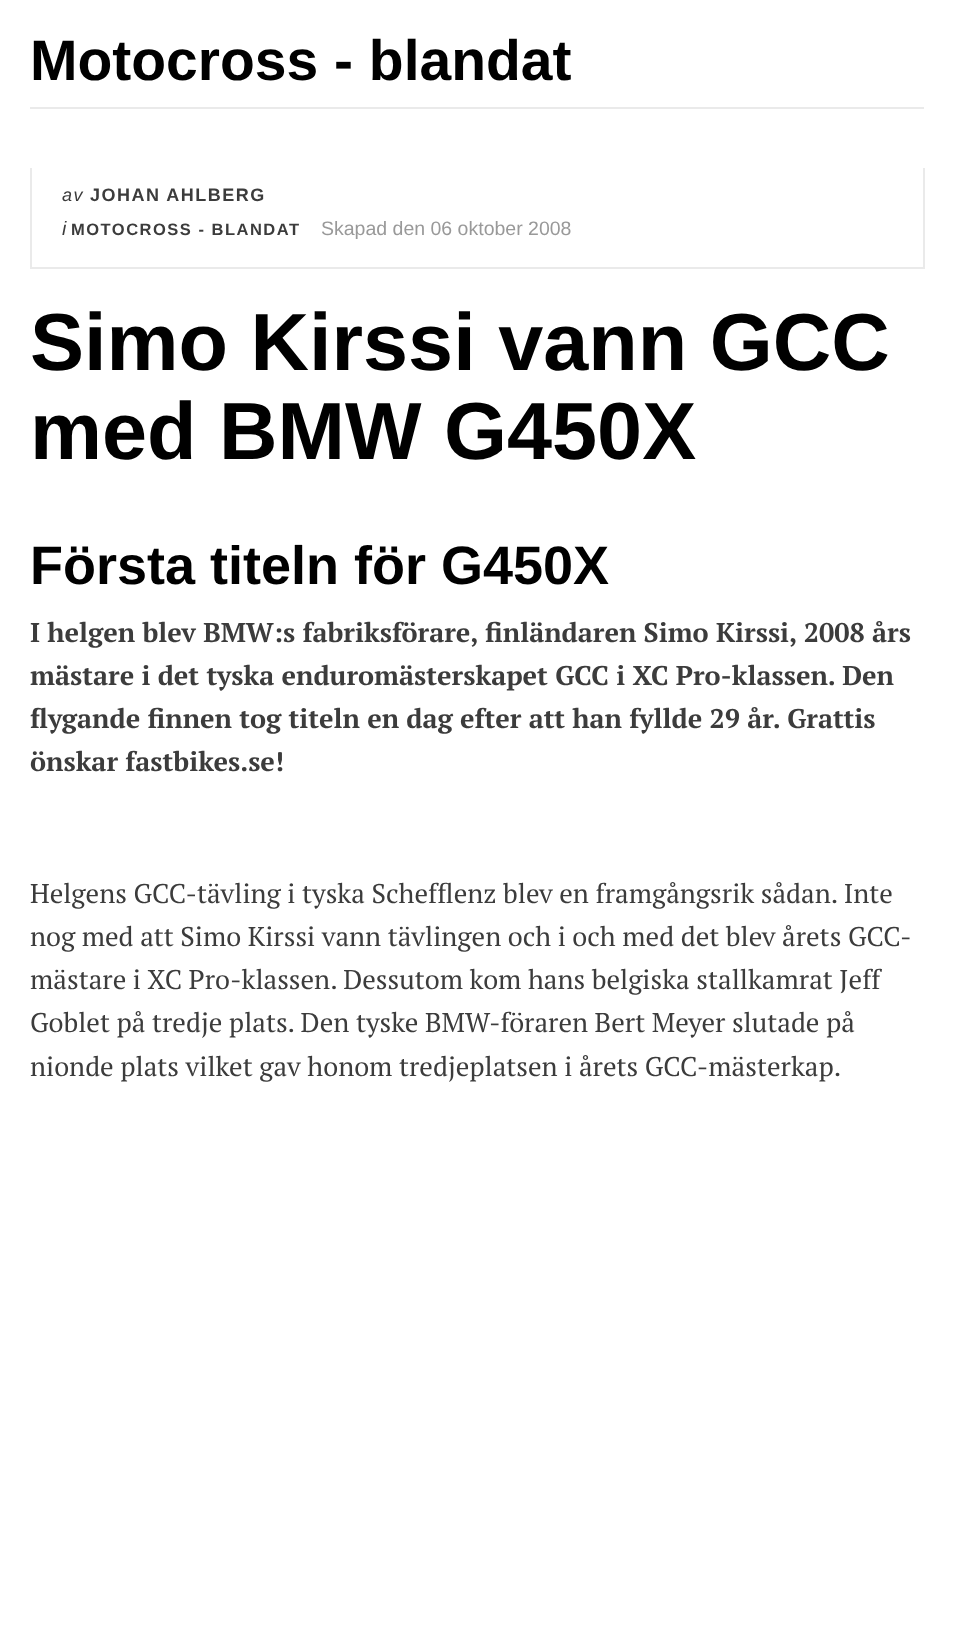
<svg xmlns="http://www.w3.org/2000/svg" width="953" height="1652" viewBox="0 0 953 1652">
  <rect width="100%" height="100%" fill="#ffffff"/>
  <rect x="30" y="107" width="894" height="2" fill="#eaeaea"/>
  <text x="30" y="80" font-family="Liberation Sans" font-size="57" font-weight="bold" fill="#000000">Motocross - blandat</text>
  <rect x="923" y="168" width="2" height="101" fill="#eaeaea"/>
  <rect x="30" y="267" width="894" height="2" fill="#eaeaea"/>
  <rect x="30" y="168" width="2" height="101" fill="#eaeaea"/>
  <text x="62" y="201" font-family="Liberation Sans" font-size="18" font-style="italic" letter-spacing="1.5" fill="#3c3c3c">av</text>
  <text x="90" y="201" font-family="Liberation Sans" font-size="18" font-weight="bold" letter-spacing="1.5" fill="#3c3c3c">JOHAN AHLBERG</text>
  <text x="62" y="235" font-family="Liberation Sans" font-size="19.5" font-style="italic" fill="#3c3c3c">i</text>
  <text x="71" y="235" font-family="Liberation Sans" font-size="16.5" font-weight="bold" letter-spacing="1.5" fill="#3c3c3c">MOTOCROSS - BLANDAT</text>
  <text x="321" y="235" font-family="Liberation Sans" font-size="19.5" fill="#999999">Skapad den 06 oktober 2008</text>
  <text x="30" y="370" font-family="Liberation Sans" font-size="81" font-weight="bold" fill="#000000">Simo Kirssi vann GCC</text>
  <text x="30" y="459" font-family="Liberation Sans" font-size="81" font-weight="bold" fill="#000000">med BMW G450X</text>
  <text x="30" y="584" font-family="Liberation Sans" font-size="54" font-weight="bold" fill="#000000">Första titeln för G450X</text>
  <text x="30" y="642" font-family="PT Serif" font-size="27" font-weight="bold" fill="#3c3c3c">I helgen blev BMW:s fabriksförare, finländaren Simo Kirssi, 2008 års</text>
  <text x="30" y="685" font-family="PT Serif" font-size="27" font-weight="bold" fill="#3c3c3c">mästare i det tyska enduromästerskapet GCC i XC Pro-klassen. Den</text>
  <text x="30" y="728" font-family="PT Serif" font-size="27" font-weight="bold" fill="#3c3c3c">flygande finnen tog titeln en dag efter att han fyllde 29 år. Grattis</text>
  <text x="30" y="771" font-family="PT Serif" font-size="27" font-weight="bold" fill="#3c3c3c">önskar fastbikes.se!</text>
  <text x="30" y="903" font-family="PT Serif" font-size="27" fill="#3c3c3c">Helgens GCC-tävling i tyska Schefflenz blev en framgångsrik sådan. Inte</text>
  <text x="30" y="946" font-family="PT Serif" font-size="27" fill="#3c3c3c">nog med att Simo Kirssi vann tävlingen och i och med det blev årets GCC-</text>
  <text x="30" y="989" font-family="PT Serif" font-size="27" fill="#3c3c3c">mästare i XC Pro-klassen. Dessutom kom hans belgiska stallkamrat Jeff</text>
  <text x="30" y="1032" font-family="PT Serif" font-size="27" fill="#3c3c3c">Goblet på tredje plats. Den tyske BMW-föraren Bert Meyer slutade på</text>
  <text x="30" y="1076" font-family="PT Serif" font-size="27" fill="#3c3c3c">nionde plats vilket gav honom tredjeplatsen i årets GCC-mästerkap.</text>
</svg>
